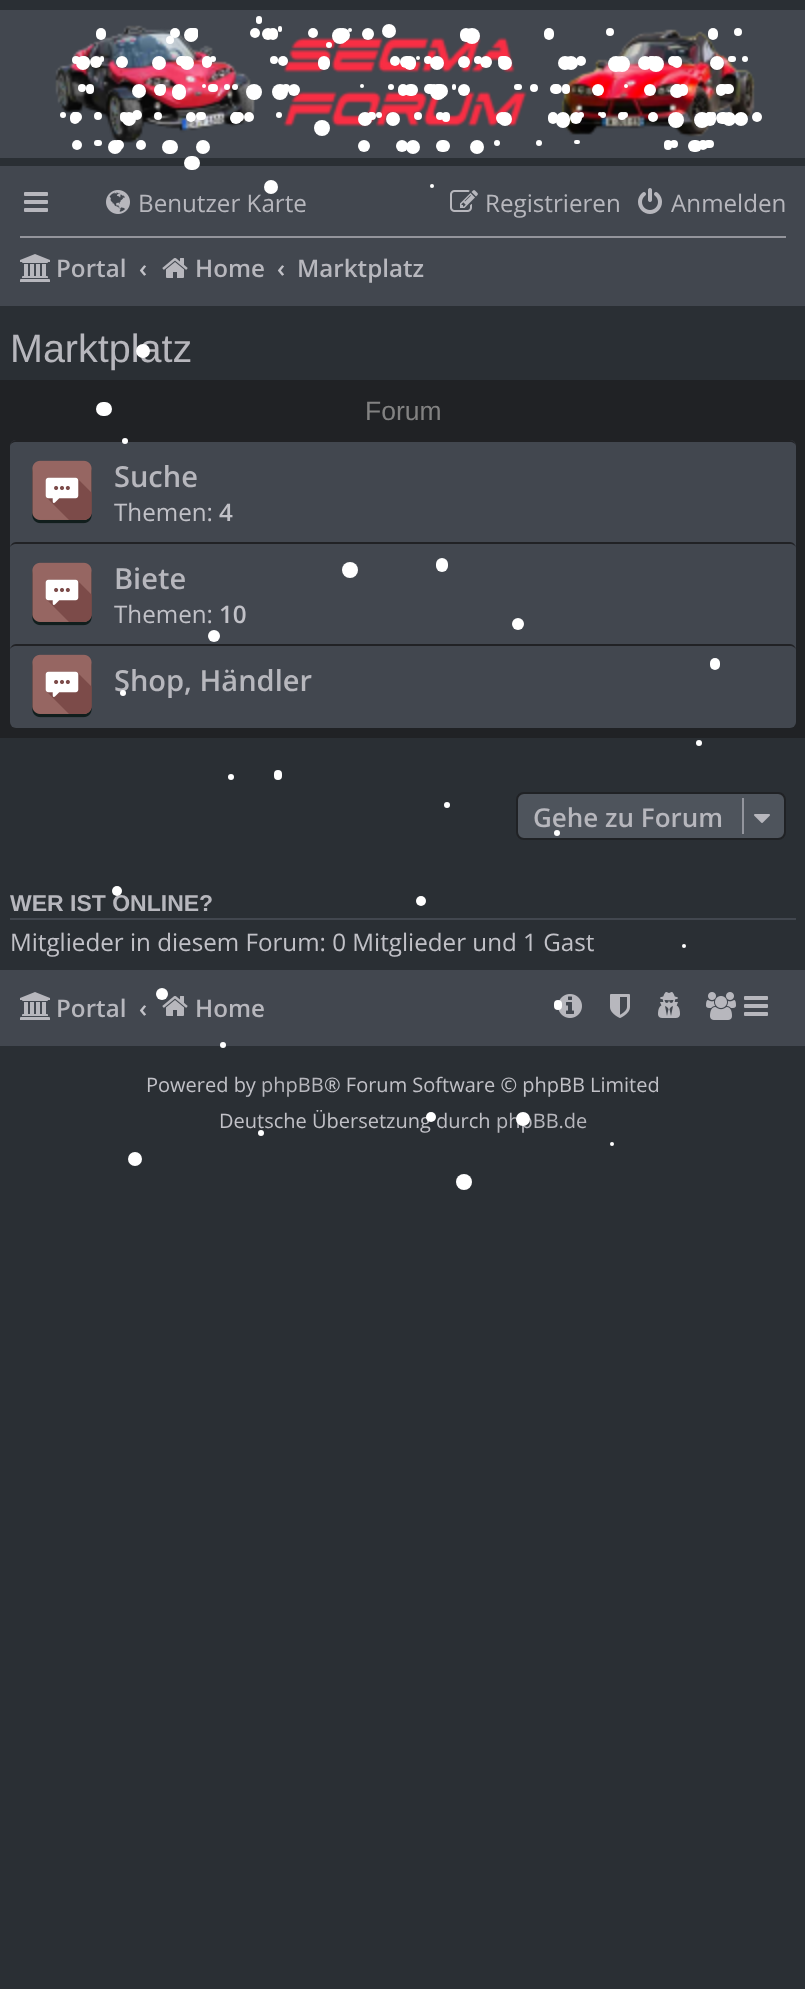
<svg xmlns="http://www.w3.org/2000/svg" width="805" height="1989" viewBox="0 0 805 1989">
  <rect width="100%" height="100%" fill="#2a2f34"/>
  <rect x="0" y="10" width="805" height="148" fill="#42474f"/>
  <rect x="256" y="16" width="6" height="8" rx="3" fill="#ffffff"/>
  <image x="55" y="25" width="700" height="118" href="img1.png"/>
  <rect x="96" y="28" width="10" height="12" rx="5" fill="#ffffff"/>
  <circle cx="170" cy="40" r="4" fill="#ffffff"/>
  <circle cx="175" cy="33" r="5" fill="#ffffff"/>
  <circle cx="191" cy="35" r="7" fill="#ffffff"/>
  <rect x="278" y="26" width="4" height="6" rx="2" fill="#ffffff"/>
  <circle cx="389" cy="31" r="7" fill="#ffffff"/>
  <circle cx="192" cy="34" r="6" fill="#ffffff"/>
  <rect x="188" y="28" width="10" height="12" rx="5" fill="#ffffff"/>
  <circle cx="195" cy="31" r="3" fill="#ffffff"/>
  <circle cx="255" cy="33" r="5" fill="#ffffff"/>
  <circle cx="268" cy="34" r="6" fill="#ffffff"/>
  <rect x="268" y="28" width="10" height="12" rx="5" fill="#ffffff"/>
  <circle cx="313" cy="33" r="5" fill="#ffffff"/>
  <circle cx="340" cy="36" r="8" fill="#ffffff"/>
  <circle cx="343" cy="35" r="7" fill="#ffffff"/>
  <circle cx="350" cy="30" r="2" fill="#ffffff"/>
  <circle cx="368" cy="34" r="6" fill="#ffffff"/>
  <rect x="460" y="28" width="12" height="14" rx="6" fill="#ffffff"/>
  <circle cx="472" cy="36" r="8" fill="#ffffff"/>
  <rect x="544" y="28" width="10" height="12" rx="5" fill="#ffffff"/>
  <circle cx="610" cy="32" r="4" fill="#ffffff"/>
  <rect x="708" y="28" width="10" height="12" rx="5" fill="#ffffff"/>
  <circle cx="738" cy="32" r="4" fill="#ffffff"/>
  <circle cx="329" cy="45" r="3" fill="#ffffff"/>
  <circle cx="76" cy="60" r="4" fill="#ffffff"/>
  <circle cx="83" cy="63" r="7" fill="#ffffff"/>
  <circle cx="84" cy="62" r="6" fill="#ffffff"/>
  <circle cx="96" cy="62" r="6" fill="#ffffff"/>
  <rect x="100" y="56" width="4" height="6" rx="2" fill="#ffffff"/>
  <circle cx="122" cy="62" r="6" fill="#ffffff"/>
  <circle cx="159" cy="63" r="7" fill="#ffffff"/>
  <circle cx="187" cy="63" r="7" fill="#ffffff"/>
  <circle cx="183" cy="61" r="5" fill="#ffffff"/>
  <circle cx="181" cy="61" r="5" fill="#ffffff"/>
  <circle cx="213" cy="59" r="3" fill="#ffffff"/>
  <rect x="202" y="56" width="10" height="12" rx="5" fill="#ffffff"/>
  <circle cx="274" cy="60" r="4" fill="#ffffff"/>
  <circle cx="283" cy="61" r="5" fill="#ffffff"/>
  <rect x="318" y="56" width="12" height="14" rx="6" fill="#ffffff"/>
  <circle cx="395" cy="61" r="5" fill="#ffffff"/>
  <rect x="400" y="56" width="14" height="12" rx="6" fill="#ffffff"/>
  <rect x="404" y="56" width="12" height="14" rx="6" fill="#ffffff"/>
  <circle cx="418" cy="58" r="2" fill="#ffffff"/>
  <circle cx="437" cy="63" r="7" fill="#ffffff"/>
  <circle cx="428" cy="60" r="4" fill="#ffffff"/>
  <circle cx="464" cy="62" r="6" fill="#ffffff"/>
  <circle cx="486" cy="62" r="6" fill="#ffffff"/>
  <circle cx="478" cy="60" r="4" fill="#ffffff"/>
  <circle cx="505" cy="63" r="7" fill="#ffffff"/>
  <rect x="498" y="56" width="10" height="8" rx="4" fill="#ffffff"/>
  <circle cx="571" cy="63" r="7" fill="#ffffff"/>
  <circle cx="565" cy="63" r="7" fill="#ffffff"/>
  <circle cx="581" cy="61" r="5" fill="#ffffff"/>
  <circle cx="616" cy="64" r="8" fill="#ffffff"/>
  <circle cx="622" cy="64" r="8" fill="#ffffff"/>
  <circle cx="652" cy="60" r="4" fill="#ffffff"/>
  <circle cx="651" cy="59" r="3" fill="#ffffff"/>
  <circle cx="645" cy="63" r="7" fill="#ffffff"/>
  <circle cx="656" cy="64" r="8" fill="#ffffff"/>
  <rect x="672" y="56" width="10" height="12" rx="5" fill="#ffffff"/>
  <circle cx="673" cy="61" r="5" fill="#ffffff"/>
  <circle cx="717" cy="63" r="7" fill="#ffffff"/>
  <rect x="728" y="56" width="8" height="6" rx="3" fill="#ffffff"/>
  <circle cx="745" cy="59" r="3" fill="#ffffff"/>
  <circle cx="82" cy="88" r="4" fill="#ffffff"/>
  <rect x="86" y="84" width="8" height="10" rx="4" fill="#ffffff"/>
  <circle cx="139" cy="91" r="7" fill="#ffffff"/>
  <circle cx="162" cy="88" r="4" fill="#ffffff"/>
  <circle cx="160" cy="90" r="6" fill="#ffffff"/>
  <rect x="172" y="84" width="14" height="16" rx="7" fill="#ffffff"/>
  <circle cx="204" cy="86" r="2" fill="#ffffff"/>
  <rect x="208" y="84" width="10" height="8" rx="4" fill="#ffffff"/>
  <circle cx="227" cy="87" r="3" fill="#ffffff"/>
  <circle cx="235" cy="87" r="3" fill="#ffffff"/>
  <circle cx="254" cy="92" r="8" fill="#ffffff"/>
  <circle cx="280" cy="92" r="8" fill="#ffffff"/>
  <circle cx="294" cy="90" r="6" fill="#ffffff"/>
  <circle cx="286" cy="88" r="4" fill="#ffffff"/>
  <circle cx="362" cy="86" r="2" fill="#ffffff"/>
  <circle cx="391" cy="87" r="3" fill="#ffffff"/>
  <rect x="404" y="84" width="14" height="12" rx="6" fill="#ffffff"/>
  <rect x="398" y="84" width="10" height="12" rx="5" fill="#ffffff"/>
  <circle cx="434" cy="86" r="2" fill="#ffffff"/>
  <rect x="432" y="84" width="16" height="14" rx="7" fill="#ffffff"/>
  <circle cx="438" cy="92" r="8" fill="#ffffff"/>
  <circle cx="429" cy="89" r="5" fill="#ffffff"/>
  <circle cx="431" cy="89" r="5" fill="#ffffff"/>
  <rect x="452" y="84" width="4" height="6" rx="2" fill="#ffffff"/>
  <circle cx="464" cy="90" r="6" fill="#ffffff"/>
  <rect x="514" y="84" width="8" height="6" rx="3" fill="#ffffff"/>
  <circle cx="534" cy="88" r="4" fill="#ffffff"/>
  <rect x="550" y="84" width="12" height="10" rx="5" fill="#ffffff"/>
  <rect x="562" y="84" width="8" height="10" rx="4" fill="#ffffff"/>
  <circle cx="598" cy="90" r="6" fill="#ffffff"/>
  <circle cx="626" cy="86" r="2" fill="#ffffff"/>
  <circle cx="650" cy="90" r="6" fill="#ffffff"/>
  <rect x="678" y="84" width="10" height="12" rx="5" fill="#ffffff"/>
  <circle cx="677" cy="91" r="7" fill="#ffffff"/>
  <circle cx="677" cy="89" r="5" fill="#ffffff"/>
  <rect x="722" y="84" width="12" height="10" rx="5" fill="#ffffff"/>
  <rect x="716" y="84" width="10" height="12" rx="5" fill="#ffffff"/>
  <circle cx="723" cy="89" r="5" fill="#ffffff"/>
  <circle cx="63" cy="115" r="3" fill="#ffffff"/>
  <circle cx="77" cy="117" r="5" fill="#ffffff"/>
  <rect x="70" y="112" width="10" height="12" rx="5" fill="#ffffff"/>
  <circle cx="137" cy="115" r="5" fill="#ffffff"/>
  <circle cx="74" cy="114" r="2" fill="#ffffff"/>
  <circle cx="98" cy="116" r="4" fill="#ffffff"/>
  <circle cx="98" cy="114" r="2" fill="#ffffff"/>
  <rect x="120" y="112" width="8" height="10" rx="4" fill="#ffffff"/>
  <circle cx="129" cy="119" r="7" fill="#ffffff"/>
  <circle cx="158" cy="116" r="4" fill="#ffffff"/>
  <circle cx="191" cy="117" r="5" fill="#ffffff"/>
  <rect x="196" y="112" width="10" height="8" rx="4" fill="#ffffff"/>
  <circle cx="239" cy="117" r="5" fill="#ffffff"/>
  <circle cx="235" cy="115" r="3" fill="#ffffff"/>
  <circle cx="236" cy="118" r="6" fill="#ffffff"/>
  <circle cx="249" cy="117" r="5" fill="#ffffff"/>
  <circle cx="279" cy="115" r="3" fill="#ffffff"/>
  <circle cx="371" cy="115" r="3" fill="#ffffff"/>
  <circle cx="372" cy="116" r="4" fill="#ffffff"/>
  <circle cx="365" cy="119" r="7" fill="#ffffff"/>
  <circle cx="379" cy="115" r="3" fill="#ffffff"/>
  <circle cx="393" cy="119" r="7" fill="#ffffff"/>
  <circle cx="418" cy="116" r="4" fill="#ffffff"/>
  <circle cx="440" cy="116" r="4" fill="#ffffff"/>
  <rect x="442" y="112" width="8" height="10" rx="4" fill="#ffffff"/>
  <circle cx="502" cy="118" r="6" fill="#ffffff"/>
  <circle cx="505" cy="119" r="7" fill="#ffffff"/>
  <rect x="556" y="112" width="14" height="16" rx="7" fill="#ffffff"/>
  <rect x="548" y="112" width="10" height="12" rx="5" fill="#ffffff"/>
  <circle cx="581" cy="115" r="3" fill="#ffffff"/>
  <circle cx="576" cy="118" r="6" fill="#ffffff"/>
  <circle cx="600" cy="114" r="2" fill="#ffffff"/>
  <circle cx="603" cy="115" r="3" fill="#ffffff"/>
  <circle cx="622" cy="116" r="4" fill="#ffffff"/>
  <circle cx="625" cy="115" r="3" fill="#ffffff"/>
  <circle cx="653" cy="117" r="5" fill="#ffffff"/>
  <circle cx="676" cy="120" r="8" fill="#ffffff"/>
  <rect x="704" y="112" width="12" height="14" rx="6" fill="#ffffff"/>
  <circle cx="709" cy="115" r="3" fill="#ffffff"/>
  <circle cx="702" cy="120" r="8" fill="#ffffff"/>
  <circle cx="713" cy="115" r="3" fill="#ffffff"/>
  <circle cx="729" cy="119" r="7" fill="#ffffff"/>
  <rect x="716" y="112" width="14" height="12" rx="6" fill="#ffffff"/>
  <circle cx="741" cy="119" r="7" fill="#ffffff"/>
  <circle cx="757" cy="117" r="5" fill="#ffffff"/>
  <circle cx="322" cy="128" r="8" fill="#ffffff"/>
  <circle cx="77" cy="145" r="5" fill="#ffffff"/>
  <rect x="94" y="140" width="8" height="6" rx="3" fill="#ffffff"/>
  <circle cx="119" cy="145" r="5" fill="#ffffff"/>
  <circle cx="115" cy="147" r="7" fill="#ffffff"/>
  <circle cx="118" cy="142" r="2" fill="#ffffff"/>
  <circle cx="141" cy="145" r="5" fill="#ffffff"/>
  <rect x="162" y="140" width="16" height="14" rx="7" fill="#ffffff"/>
  <circle cx="203" cy="147" r="7" fill="#ffffff"/>
  <circle cx="364" cy="146" r="6" fill="#ffffff"/>
  <circle cx="413" cy="147" r="7" fill="#ffffff"/>
  <circle cx="402" cy="146" r="6" fill="#ffffff"/>
  <rect x="436" y="140" width="14" height="12" rx="6" fill="#ffffff"/>
  <circle cx="477" cy="147" r="7" fill="#ffffff"/>
  <circle cx="497" cy="143" r="3" fill="#ffffff"/>
  <circle cx="539" cy="143" r="3" fill="#ffffff"/>
  <rect x="574" y="140" width="6" height="4" rx="2" fill="#ffffff"/>
  <rect x="664" y="140" width="8" height="10" rx="4" fill="#ffffff"/>
  <circle cx="674" cy="144" r="4" fill="#ffffff"/>
  <rect x="688" y="140" width="14" height="12" rx="6" fill="#ffffff"/>
  <rect x="704" y="140" width="10" height="8" rx="4" fill="#ffffff"/>
  <circle cx="703" cy="145" r="5" fill="#ffffff"/>
  <rect x="0" y="166" width="805" height="140" fill="#42474f"/>
  <rect x="184" y="156" width="16" height="14" rx="7" fill="#ffffff"/>
  <circle cx="271" cy="187" r="7" fill="#ffffff"/>
  <circle cx="432" cy="186" r="2" fill="#ffffff"/>
  <image x="24" y="192" width="24" height="20" href="img2.png"/>
  <image x="106" y="190" width="24" height="24" href="img3.png"/>
  <text x="138" y="212" font-family="Open Sans" font-size="24.2" fill="#b7b7bd">Benutzer Karte</text>
  <image x="450" y="190" width="28" height="22" href="img4.png"/>
  <text x="485" y="212" font-family="Open Sans" font-size="24.2" fill="#b7b7bd">Registrieren</text>
  <image x="638" y="188" width="24" height="26" href="img5.png"/>
  <text x="671" y="212" font-family="Open Sans" font-size="24.2" fill="#b7b7bd">Anmelden</text>
  <rect x="20" y="236" width="766" height="2" fill="#94959c"/>
  <image x="20" y="254" width="30" height="28" href="img6.png"/>
  <text x="56" y="277" font-family="Open Sans" font-size="24.2" font-weight="600" fill="#b7b7bd">Portal</text>
  <text x="139" y="277" font-family="Open Sans" font-size="24.2" font-weight="600" fill="#c1c1c7">‹</text>
  <image x="162" y="258" width="26" height="20" href="img7.png"/>
  <text x="195" y="277" font-family="Open Sans" font-size="24.2" font-weight="600" fill="#b7b7bd">Home</text>
  <text x="277" y="277" font-family="Open Sans" font-size="24.2" font-weight="600" fill="#c1c1c7">‹</text>
  <text x="297" y="277" font-family="Open Sans" font-size="24.2" font-weight="600" fill="#b7b7bd">Marktplatz</text>
  <text x="10" y="362" font-family="Liberation Sans" font-size="39.5" fill="#b7b7bd">Marktplatz</text>
  <rect x="0" y="380" width="805" height="358" fill="#202225"/>
  <text x="365" y="420" font-family="Liberation Sans" font-size="26.5" fill="#828282">Forum</text>
  <rect x="10" y="440" width="786" height="288" rx="6" fill="#42474f"/>
  <path d="M16 440C13 440 10 443 10 446C10 444 13 442 16 442H790C793 442 796 444 796 446C796 443 793 440 790 440Z" fill="#212225"/>
  <image x="32" y="460" width="60" height="64" href="img8.png"/>
  <text x="114" y="487" font-family="Open Sans" font-size="29" font-weight="600" fill="#b7b7bd">Suche</text>
  <text x="114" y="521" font-family="Open Sans" font-size="24.2" fill="#c1c1c7">Themen:</text>
  <text x="219" y="521" font-family="Open Sans" font-size="24.2" font-weight="600" fill="#c1c1c7">4</text>
  <path d="M16 542C13 542 10 545 10 548C10 546 13 544 16 544H790C793 544 796 546 796 548C796 545 793 542 790 542Z" fill="#212225"/>
  <image x="32" y="562" width="60" height="64" href="img8.png"/>
  <text x="114" y="589" font-family="Open Sans" font-size="29" font-weight="600" fill="#b7b7bd">Biete</text>
  <text x="114" y="623" font-family="Open Sans" font-size="24.2" fill="#c1c1c7">Themen:</text>
  <text x="219" y="623" font-family="Open Sans" font-size="24.2" font-weight="600" fill="#c1c1c7">10</text>
  <path d="M16 644C13 644 10 647 10 650C10 648 13 646 16 646H790C793 646 796 648 796 650C796 647 793 644 790 644Z" fill="#212225"/>
  <image x="32" y="654" width="60" height="64" href="img8.png"/>
  <text x="114" y="691" font-family="Open Sans" font-size="29" font-weight="600" fill="#b7b7bd">Shop, Händler</text>
  <rect x="517" y="793" width="268" height="46" rx="7" fill="#4e545c" stroke="#202225" stroke-width="2"/>
  <text x="533" y="827" font-family="Open Sans" font-size="26" font-weight="600" fill="#b7b7bd">Gehe zu Forum</text>
  <rect x="742" y="798" width="2" height="36" fill="#93959d"/>
  <image x="754" y="814" width="16" height="9" href="img9.png"/>
  <rect x="10" y="918" width="786" height="2" fill="#42474f"/>
  <text x="10" y="911" font-family="Liberation Sans" font-size="23" font-weight="bold" fill="#b7b7bd">WER IST ONLINE?</text>
  <text x="10" y="951" font-family="Open Sans" font-size="24.2" fill="#c1c1c7">Mitglieder in diesem Forum: 0 Mitglieder und 1 Gast</text>
  <rect x="0" y="970" width="805" height="76" fill="#42474f"/>
  <image x="20" y="992" width="30" height="28" href="img6.png"/>
  <text x="56" y="1017" font-family="Open Sans" font-size="24.2" font-weight="600" fill="#b7b7bd">Portal</text>
  <text x="139" y="1017" font-family="Open Sans" font-size="24.2" font-weight="600" fill="#c1c1c7">‹</text>
  <image x="162" y="996" width="26" height="20" href="img7.png"/>
  <text x="195" y="1017" font-family="Open Sans" font-size="24.2" font-weight="600" fill="#b7b7bd">Home</text>
  <image x="558" y="994" width="24" height="24" href="img10.png"/>
  <image x="610" y="994" width="20" height="24" href="img11.png"/>
  <image x="658" y="992" width="22" height="26" href="img12.png"/>
  <image x="706" y="992" width="30" height="28" href="img13.png"/>
  <image x="744" y="996" width="24" height="20" href="img2.png"/>
  <text x="146" y="1092" font-family="Open Sans" font-size="20" fill="#c1c1c7">Powered by</text>
  <text x="261" y="1092" font-family="Open Sans" font-size="20" fill="#b7b7bd">phpBB</text>
  <text x="324" y="1092" font-family="Open Sans" font-size="20" fill="#c1c1c7">® Forum Software © phpBB Limited</text>
  <text x="219" y="1128" font-family="Open Sans" font-size="20" fill="#c1c1c7">Deutsche Übersetzung durch</text>
  <text x="496" y="1128" font-family="Open Sans" font-size="20" fill="#b7b7bd">phpBB.de</text>
  <circle cx="143" cy="351" r="7" fill="#ffffff"/>
  <rect x="96" y="402" width="16" height="14" rx="7" fill="#ffffff"/>
  <circle cx="125" cy="441" r="3" fill="#ffffff"/>
  <circle cx="350" cy="570" r="8" fill="#ffffff"/>
  <rect x="436" y="558" width="12" height="14" rx="6" fill="#ffffff"/>
  <circle cx="518" cy="624" r="6" fill="#ffffff"/>
  <circle cx="214" cy="636" r="6" fill="#ffffff"/>
  <rect x="710" y="658" width="10" height="12" rx="5" fill="#ffffff"/>
  <circle cx="123" cy="693" r="3" fill="#ffffff"/>
  <circle cx="699" cy="743" r="3" fill="#ffffff"/>
  <circle cx="231" cy="777" r="3" fill="#ffffff"/>
  <rect x="274" y="770" width="8" height="10" rx="4" fill="#ffffff"/>
  <circle cx="447" cy="805" r="3" fill="#ffffff"/>
  <circle cx="557" cy="833" r="3" fill="#ffffff"/>
  <circle cx="117" cy="891" r="5" fill="#ffffff"/>
  <circle cx="421" cy="901" r="5" fill="#ffffff"/>
  <circle cx="684" cy="946" r="2" fill="#ffffff"/>
  <circle cx="162" cy="994" r="6" fill="#ffffff"/>
  <rect x="554" y="1000" width="8" height="10" rx="4" fill="#ffffff"/>
  <circle cx="223" cy="1045" r="3" fill="#ffffff"/>
  <circle cx="431" cy="1117" r="5" fill="#ffffff"/>
  <circle cx="523" cy="1119" r="7" fill="#ffffff"/>
  <circle cx="261" cy="1133" r="3" fill="#ffffff"/>
  <circle cx="612" cy="1144" r="2" fill="#ffffff"/>
  <circle cx="135" cy="1159" r="7" fill="#ffffff"/>
  <circle cx="464" cy="1182" r="8" fill="#ffffff"/>
</svg>
